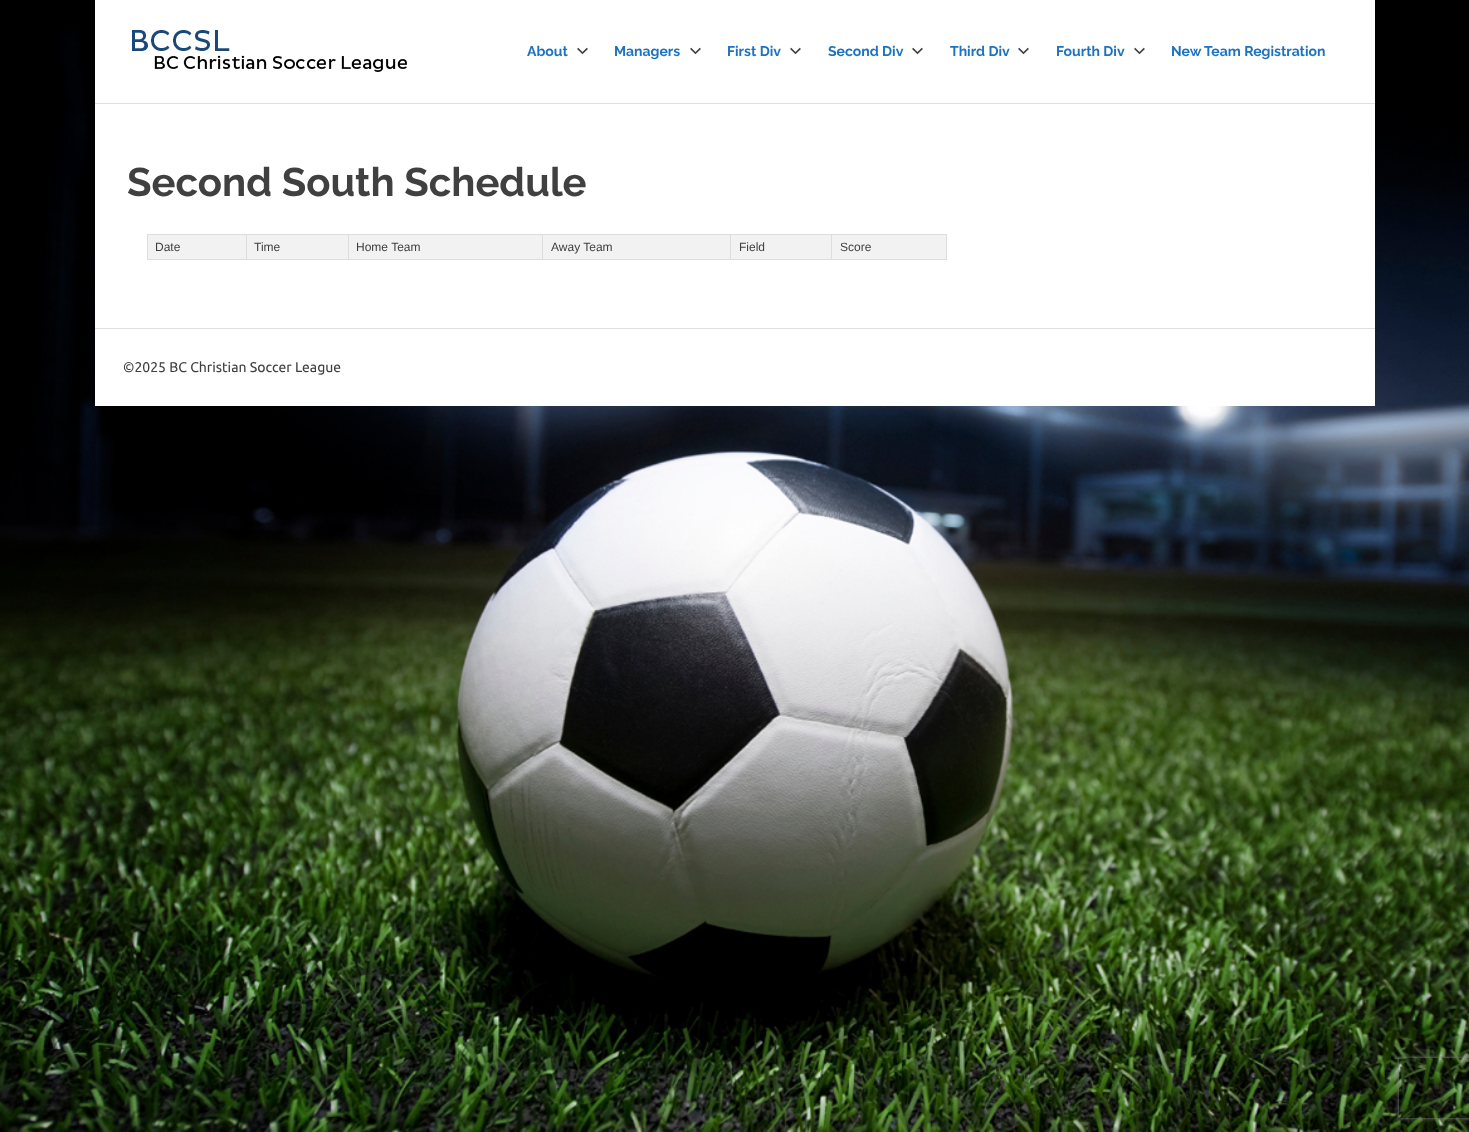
<svg xmlns="http://www.w3.org/2000/svg" width="1469" height="1132" viewBox="0 0 1469 1132">
  <defs>
    <clipPath id="clip1"><path d="M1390 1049H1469V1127H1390ZM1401 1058H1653C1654 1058 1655 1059 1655 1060V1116C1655 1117 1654 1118 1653 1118H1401C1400 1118 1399 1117 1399 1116V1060C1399 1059 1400 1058 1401 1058Z" clip-rule="evenodd"/></clipPath>
    <filter id="blur1" x="-50%" y="-200%" width="200%" height="500%"><feGaussianBlur stdDeviation="2.5"/></filter>
  </defs>
  <rect width="100%" height="100%" fill="#ffffff"/>
  <image x="0" y="0" width="1469" height="1132" href="img1.png"/>
  <rect x="95" y="0" width="1280" height="103" fill="#ffffff"/>
  <rect x="95" y="103" width="1280" height="1" fill="#e0e0e0"/>
  <image x="132" y="30" width="275" height="42" href="img2.png"/>
  <text x="527" y="56" font-family="Raleway" font-size="14" font-weight="100" fill="#1e73be">About</text>
  <image x="577" y="47" width="11" height="8" href="img3.png"/>
  <text x="614" y="56" font-family="Raleway" font-size="14" font-weight="100" fill="#1e73be">Managers</text>
  <image x="690" y="47" width="11" height="8" href="img3.png"/>
  <text x="727" y="56" font-family="Raleway" font-size="14" font-weight="100" fill="#1e73be">First Div</text>
  <image x="790" y="47" width="11" height="8" href="img3.png"/>
  <text x="828" y="56" font-family="Raleway" font-size="14" font-weight="100" fill="#1e73be">Second Div</text>
  <image x="912" y="47" width="11" height="8" href="img3.png"/>
  <text x="950" y="56" font-family="Raleway" font-size="14" font-weight="100" fill="#1e73be">Third Div</text>
  <image x="1018" y="47" width="11" height="8" href="img3.png"/>
  <text x="1056" y="56" font-family="Raleway" font-size="14" font-weight="100" fill="#1e73be">Fourth Div</text>
  <image x="1134" y="47" width="11" height="8" href="img3.png"/>
  <text x="1171" y="56" font-family="Raleway" font-size="14" font-weight="100" fill="#1e73be">New Team Registration</text>
  <rect x="95" y="104" width="1280" height="224" fill="#ffffff"/>
  <text x="127" y="196" font-family="Raleway" font-size="40" font-weight="100" fill="#404040">Second South Schedule</text>
  <rect x="148" y="235" width="98" height="24" fill="#f2f2f2"/>
  <rect x="831" y="234" width="116" height="1" fill="#dddddd"/>
  <rect x="946" y="234" width="1" height="26" fill="#dddddd"/>
  <rect x="831" y="259" width="116" height="1" fill="#dddddd"/>
  <rect x="831" y="234" width="1" height="26" fill="#dddddd"/>
  <rect x="730" y="234" width="102" height="1" fill="#dddddd"/>
  <rect x="730" y="259" width="102" height="1" fill="#dddddd"/>
  <rect x="730" y="234" width="1" height="26" fill="#dddddd"/>
  <rect x="542" y="234" width="189" height="1" fill="#dddddd"/>
  <rect x="542" y="259" width="189" height="1" fill="#dddddd"/>
  <rect x="542" y="234" width="1" height="26" fill="#dddddd"/>
  <rect x="348" y="234" width="195" height="1" fill="#dddddd"/>
  <rect x="348" y="259" width="195" height="1" fill="#dddddd"/>
  <rect x="348" y="234" width="1" height="26" fill="#dddddd"/>
  <rect x="246" y="234" width="103" height="1" fill="#dddddd"/>
  <rect x="246" y="259" width="103" height="1" fill="#dddddd"/>
  <rect x="246" y="234" width="1" height="26" fill="#dddddd"/>
  <rect x="147" y="234" width="100" height="1" fill="#dddddd"/>
  <rect x="147" y="259" width="100" height="1" fill="#dddddd"/>
  <rect x="147" y="234" width="1" height="26" fill="#dddddd"/>
  <text x="155" y="251" font-family="Liberation Sans" font-size="12" fill="#404040">Date</text>
  <rect x="247" y="235" width="101" height="24" fill="#f2f2f2"/>
  <text x="254" y="251" font-family="Liberation Sans" font-size="12" fill="#404040">Time</text>
  <rect x="349" y="235" width="193" height="24" fill="#f2f2f2"/>
  <text x="356" y="251" font-family="Liberation Sans" font-size="12" fill="#404040">Home Team</text>
  <rect x="543" y="235" width="187" height="24" fill="#f2f2f2"/>
  <text x="551" y="251" font-family="Liberation Sans" font-size="12" fill="#404040">Away Team</text>
  <rect x="731" y="235" width="100" height="24" fill="#f2f2f2"/>
  <text x="739" y="251" font-family="Liberation Sans" font-size="12" fill="#404040">Field</text>
  <rect x="832" y="235" width="114" height="24" fill="#f2f2f2"/>
  <text x="840" y="251" font-family="Liberation Sans" font-size="12" fill="#404040">Score</text>
  <rect x="95" y="329" width="1280" height="77" fill="#ffffff"/>
  <rect x="95" y="328" width="1280" height="1" fill="#e0e0e0"/>
  <text x="123" y="372" font-family="Ubuntu" font-size="14" fill="#404040">©2025 BC Christian Soccer League</text>
  <g clip-path="url(#clip1)">
    <rect x="1399" y="1058" width="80" height="60" rx="2" fill="#808080" filter="url(#blur1)"/>
  </g>
</svg>
